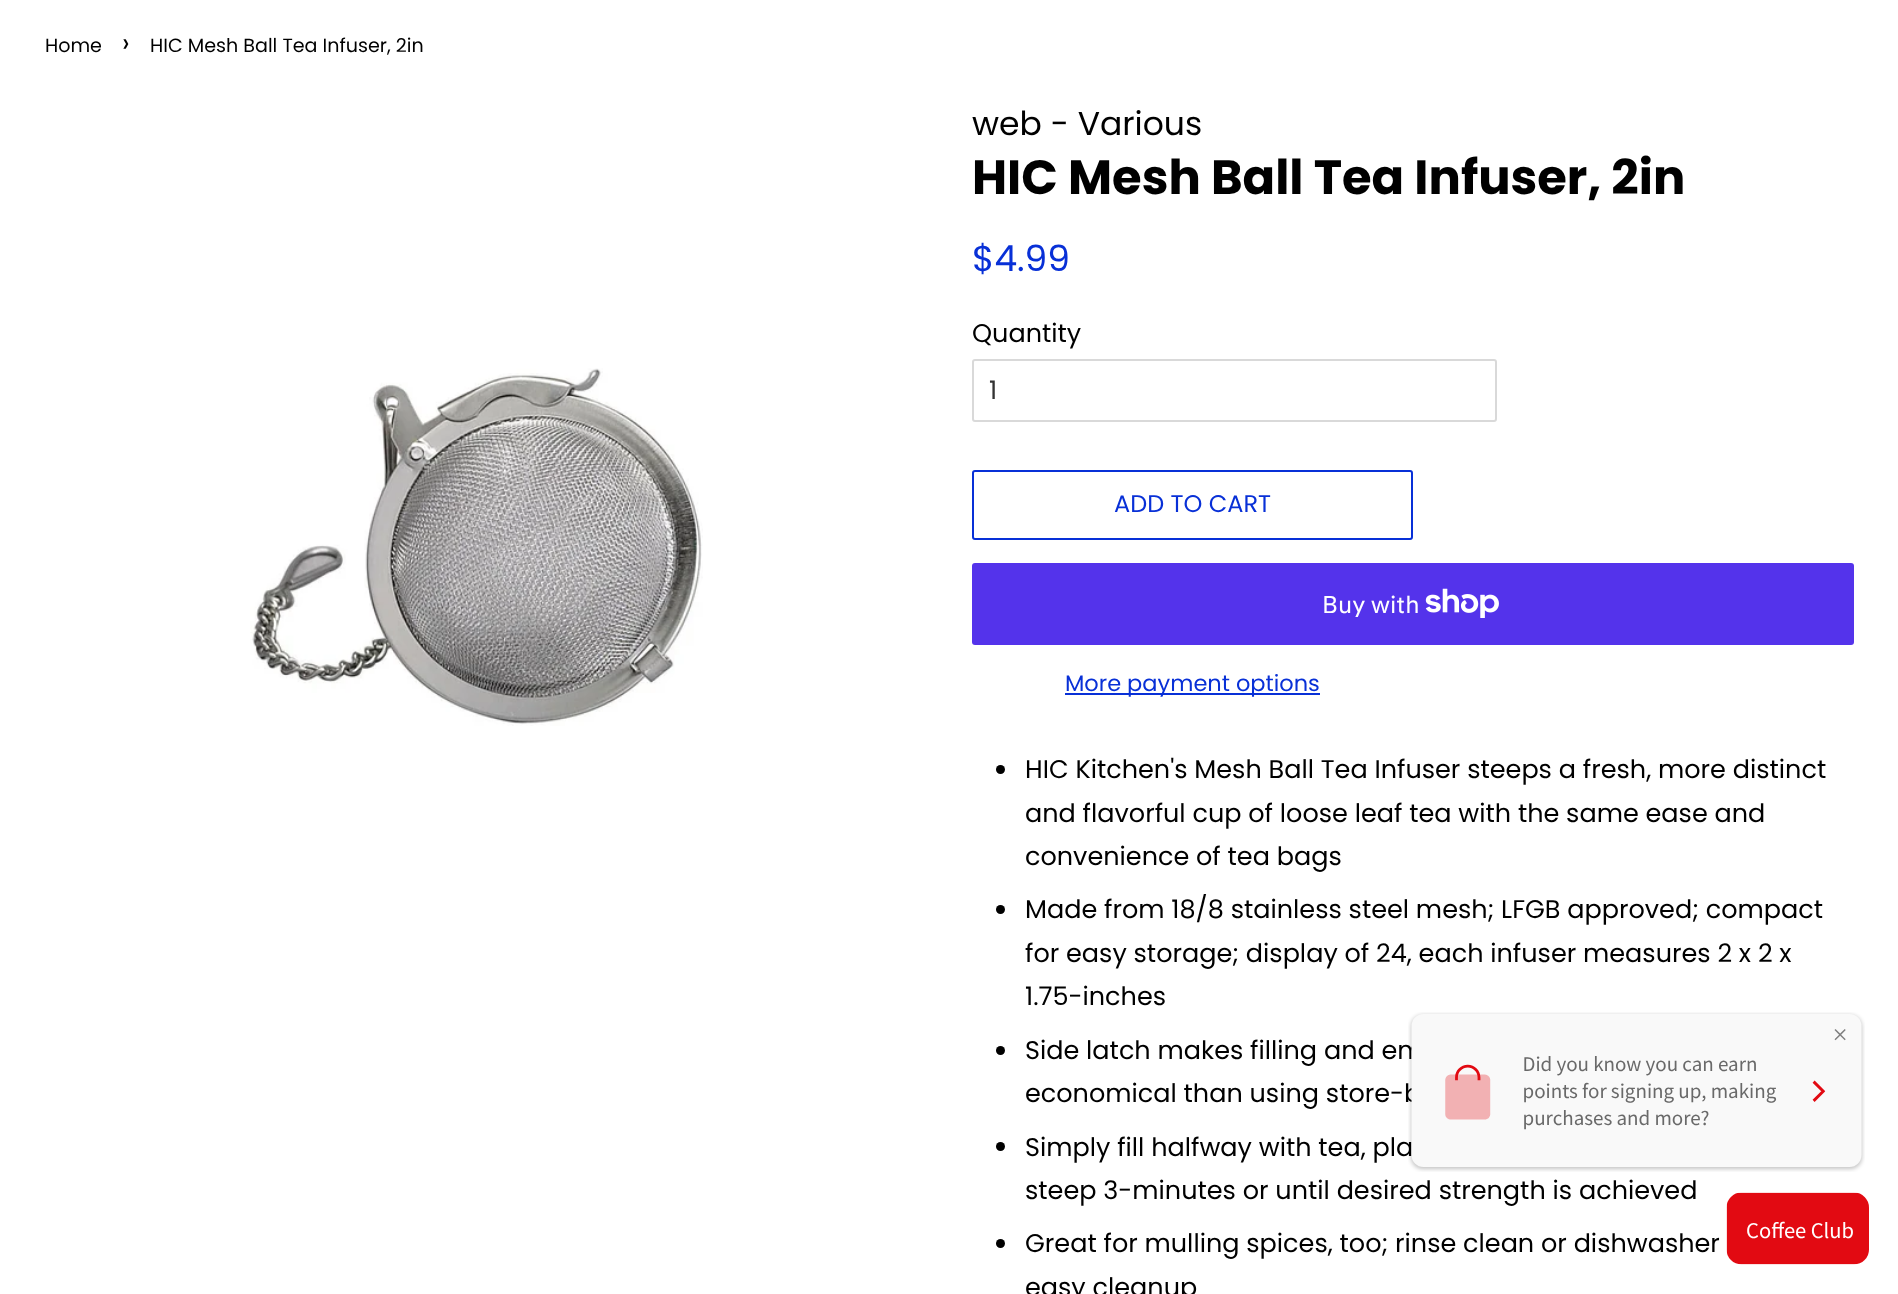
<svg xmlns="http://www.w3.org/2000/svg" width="1898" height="1294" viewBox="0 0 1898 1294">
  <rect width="100%" height="100%" fill="#ffffff"/>
  <text x="45" y="52" font-family="Poppins" font-size="19.1" fill="#000000">Home</text>
  <text x="122" y="52" font-family="Poppins" font-size="27" fill="#000000">›</text>
  <text x="150" y="52" font-family="Poppins" font-size="19.1" fill="#000000">HIC Mesh Ball Tea Infuser, 2in</text>
  <image x="250" y="368" width="453" height="358" href="img1.png"/>
  <text x="972" y="135" font-family="Poppins" font-size="33" fill="#000000">web - Various</text>
  <text x="972" y="194" font-family="Poppins" font-size="48" font-weight="bold" fill="#000000">HIC Mesh Ball Tea Infuser, 2in</text>
  <text x="972" y="271" font-family="Poppins" font-size="36" fill="#0830d7">$4.99</text>
  <text x="972" y="342" font-family="Poppins" font-size="25.5" fill="#000000">Quantity</text>
  <rect x="973" y="360" width="523" height="61" rx="2" fill="none" stroke="#d9d9d9" stroke-width="2"/>
  <text x="989" y="399" font-family="Poppins" font-size="25.5" fill="#333333">1</text>
  <rect x="973" y="471" width="439" height="68" rx="2" fill="none" stroke="#0830d7" stroke-width="2"/>
  <text x="1114" y="512" font-family="Poppins" font-size="24" fill="#0830d7">ADD TO CART</text>
  <rect x="972" y="563" width="882" height="82" rx="3" fill="#5433eb"/>
  <text x="1322" y="613" font-family="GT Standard" font-size="24" fill="#ffffff">Buy with</text>
  <image x="1425" y="588" width="74" height="30" href="img2.png"/>
  <rect x="1065" y="693" width="255" height="2" fill="#0830d7"/>
  <text x="1065" y="691" font-family="Poppins" font-size="22.5" fill="#0830d7">More payment options</text>
  <circle cx="1000.5" cy="769.5" r="4.5" fill="#000000"/>
  <text x="1025" y="778" font-family="Poppins" font-size="25.5" fill="#000000">HIC Kitchen's Mesh Ball Tea Infuser steeps a fresh, more distinct</text>
  <text x="1025" y="822" font-family="Poppins" font-size="25.5" fill="#000000">and flavorful cup of loose leaf tea with the same ease and</text>
  <text x="1025" y="865" font-family="Poppins" font-size="25.5" fill="#000000">convenience of tea bags</text>
  <circle cx="1000.5" cy="909.5" r="4.5" fill="#000000"/>
  <text x="1025" y="918" font-family="Poppins" font-size="25.5" fill="#000000">Made from 18/8 stainless steel mesh; LFGB approved; compact</text>
  <text x="1025" y="962" font-family="Poppins" font-size="25.5" fill="#000000">for easy storage; display of 24, each infuser measures 2 x 2 x</text>
  <text x="1025" y="1005" font-family="Poppins" font-size="25.5" fill="#000000">1.75-inches</text>
  <circle cx="1000.5" cy="1050.5" r="4.5" fill="#000000"/>
  <text x="1025" y="1059" font-family="Poppins" font-size="25.5" fill="#000000">Side latch makes filling and em</text>
  <text x="1025" y="1102" font-family="Poppins" font-size="25.5" fill="#000000">economical than using store-b</text>
  <circle cx="1000.5" cy="1146.5" r="4.5" fill="#000000"/>
  <text x="1025" y="1156" font-family="Poppins" font-size="25.5" fill="#000000">Simply fill halfway with tea, pla</text>
  <text x="1025" y="1199" font-family="Poppins" font-size="25.5" fill="#000000">steep 3-minutes or until desired strength is achieved</text>
  <circle cx="1000.5" cy="1243.5" r="4.5" fill="#000000"/>
  <text x="1025" y="1252" font-family="Poppins" font-size="25.5" fill="#000000">Great for mulling spices, too; rinse clean or dishwasher</text>
  <text x="1025" y="1296" font-family="Poppins" font-size="25.5" fill="#000000">easy cleanup</text>
  <image x="1408" y="1012" width="457" height="160" href="img3.png"/>
  <image x="1726" y="1192" width="143" height="73" href="img4.png"/>
</svg>
